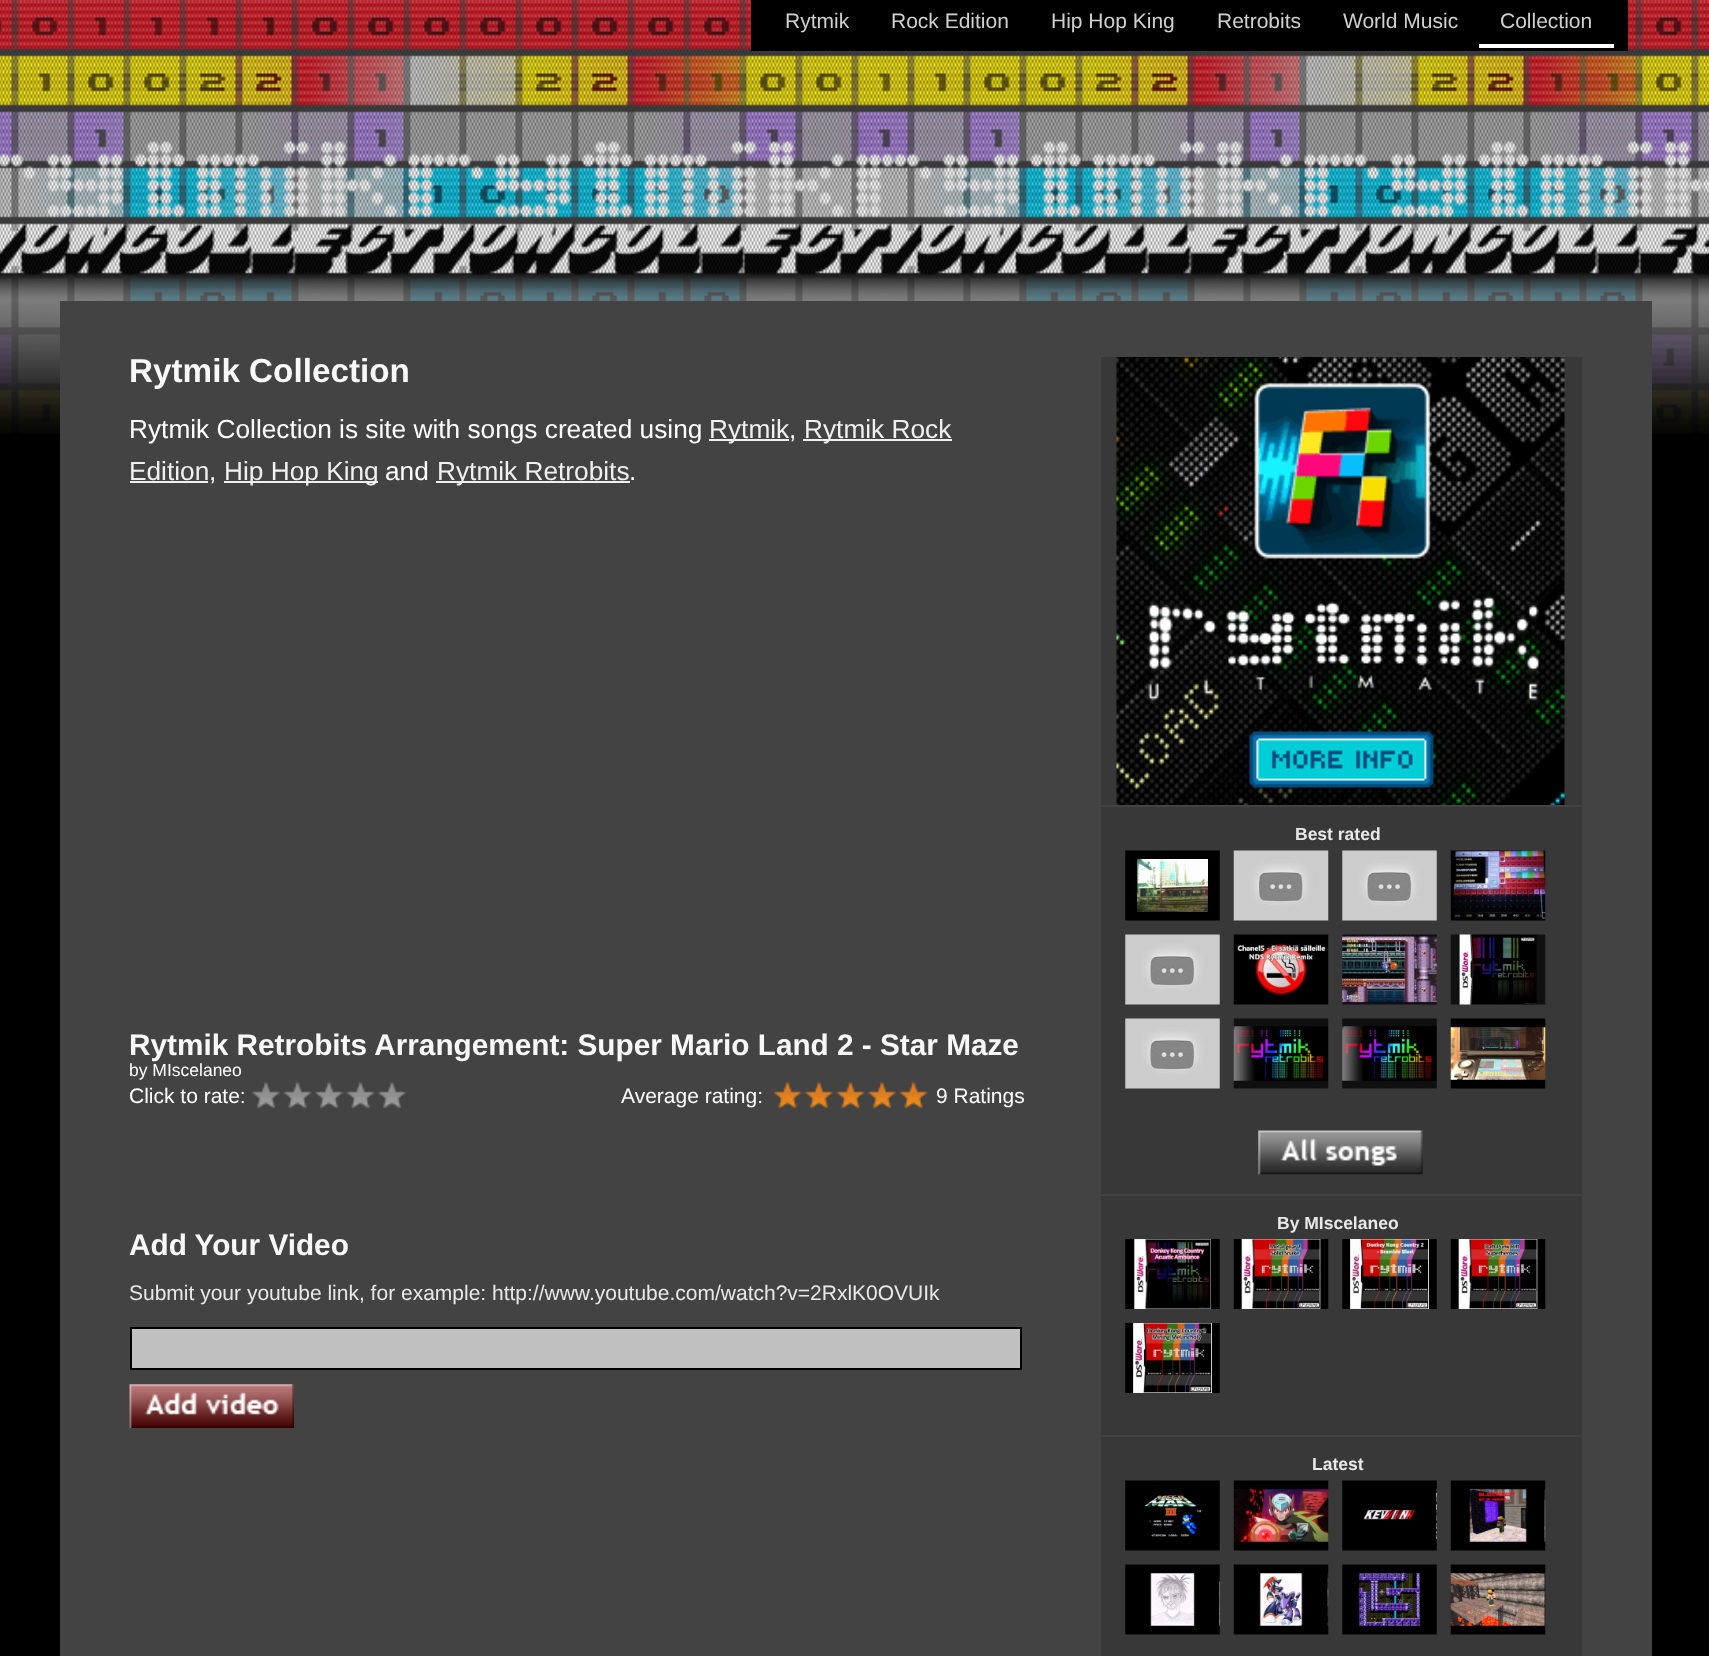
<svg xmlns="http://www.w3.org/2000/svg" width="1709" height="1656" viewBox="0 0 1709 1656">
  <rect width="100%" height="100%" fill="#000000"/>
  <image x="0" y="0" width="1709" height="434" href="img1.png"/>
  <rect x="751" y="0" width="877" height="51" fill="#000000"/>
  <text x="785" y="28" font-family="Liberation Sans" font-size="21" fill="#d0d0d0">Rytmik</text>
  <text x="891" y="28" font-family="Liberation Sans" font-size="21" fill="#d0d0d0">Rock Edition</text>
  <text x="1051" y="28" font-family="Liberation Sans" font-size="21" fill="#d0d0d0">Hip Hop King</text>
  <text x="1217" y="28" font-family="Liberation Sans" font-size="21" fill="#d0d0d0">Retrobits</text>
  <text x="1343" y="28" font-family="Liberation Sans" font-size="21" fill="#d0d0d0">World Music</text>
  <rect x="1479" y="44" width="135" height="4" fill="#ffffff"/>
  <text x="1500" y="28" font-family="Liberation Sans" font-size="21" fill="#d0d0d0">Collection</text>
  <rect x="60" y="301" width="1592" height="1355" fill="#434343"/>
  <text x="129" y="382" font-family="Liberation Sans" font-size="33.25" font-weight="bold" fill="#f8f8f8">Rytmik Collection</text>
  <text x="129" y="438" font-family="Liberation Sans" font-size="26.25" fill="#ffffff">Rytmik Collection is site with songs created using</text>
  <rect x="709" y="439" width="80" height="2" fill="#f0f0f0"/>
  <text x="709" y="438" font-family="Liberation Sans" font-size="26.25" fill="#f0f0f0">Rytmik</text>
  <text x="789" y="438" font-family="Liberation Sans" font-size="26.25" fill="#ffffff">,</text>
  <rect x="803" y="439" width="149" height="2" fill="#f0f0f0"/>
  <text x="804" y="438" font-family="Liberation Sans" font-size="26.25" fill="#f0f0f0">Rytmik Rock</text>
  <text x="129" y="480" font-family="Liberation Sans" font-size="26.25" fill="#f0f0f0">Edition</text>
  <rect x="130" y="481" width="78" height="2" fill="#f0f0f0"/>
  <text x="209" y="480" font-family="Liberation Sans" font-size="26.25" fill="#ffffff">,</text>
  <rect x="224" y="481" width="154" height="2" fill="#f0f0f0"/>
  <text x="224" y="480" font-family="Liberation Sans" font-size="26.25" fill="#f0f0f0">Hip Hop King</text>
  <text x="385" y="480" font-family="Liberation Sans" font-size="26.25" fill="#ffffff">and</text>
  <rect x="436" y="481" width="194" height="2" fill="#f0f0f0"/>
  <text x="437" y="480" font-family="Liberation Sans" font-size="26.25" fill="#f0f0f0">Rytmik Retrobits</text>
  <text x="629" y="480" font-family="Liberation Sans" font-size="26.25" fill="#ffffff">.</text>
  <text x="129" y="1055" font-family="Liberation Sans" font-size="29.75" font-weight="bold" fill="#f8f8f8">Rytmik Retrobits Arrangement: Super Mario Land 2 - Star Maze</text>
  <text x="129" y="1076" font-family="Liberation Sans" font-size="17.5" fill="#ffffff">by MIscelaneo</text>
  <text x="129" y="1103" font-family="Liberation Sans" font-size="21" fill="#ffffff">Click to rate:</text>
  <image x="252" y="1081" width="29" height="28" href="img2.png"/>
  <image x="283" y="1081" width="29" height="28" href="img3.png"/>
  <image x="315" y="1081" width="29" height="28" href="img2.png"/>
  <image x="346" y="1081" width="29" height="28" href="img3.png"/>
  <image x="378" y="1081" width="29" height="28" href="img2.png"/>
  <text x="621" y="1103" font-family="Liberation Sans" font-size="21" fill="#ffffff">Average rating:</text>
  <image x="773" y="1081" width="29" height="28" href="img4.png"/>
  <image x="804" y="1081" width="30" height="28" href="img5.png"/>
  <image x="836" y="1081" width="29" height="28" href="img6.png"/>
  <image x="867" y="1081" width="30" height="28" href="img7.png"/>
  <image x="899" y="1081" width="29" height="28" href="img6.png"/>
  <text x="936" y="1103" font-family="Liberation Sans" font-size="21" fill="#ffffff">9 Ratings</text>
  <text x="129" y="1255" font-family="Liberation Sans" font-size="29.75" font-weight="bold" fill="#f8f8f8">Add Your Video</text>
  <text x="129" y="1300" font-family="Liberation Sans" font-size="21" fill="#e8e8e8">Submit your youtube link, for example: http://www.youtube.com/watch?v=2RxlK0OVUIk</text>
  <rect x="131" y="1328" width="890" height="41" fill="#c0c0c0" stroke="#000000" stroke-width="2"/>
  <image x="129" y="1384" width="165" height="44" href="img8.png"/>
  <rect x="1101" y="357" width="481" height="1299" fill="#383838"/>
  <image x="1116" y="357" width="449" height="448" href="img9.png"/>
  <rect x="1101" y="805" width="481" height="2" fill="#434343"/>
  <text x="1295" y="840" font-family="Liberation Sans" font-size="17.5" font-weight="bold" fill="#e8e8e8">Best rated</text>
  <image x="1125" y="850" width="95" height="71" href="img10.png"/>
  <image x="1233" y="850" width="96" height="71" href="img11.png"/>
  <image x="1342" y="850" width="95" height="71" href="img12.png"/>
  <image x="1450" y="850" width="96" height="71" href="img13.png"/>
  <image x="1125" y="934" width="95" height="71" href="img14.png"/>
  <image x="1233" y="934" width="96" height="71" href="img15.png"/>
  <image x="1342" y="934" width="95" height="71" href="img16.png"/>
  <image x="1450" y="934" width="96" height="71" href="img17.png"/>
  <image x="1125" y="1018" width="95" height="71" href="img14.png"/>
  <image x="1233" y="1018" width="96" height="71" href="img18.png"/>
  <image x="1342" y="1018" width="95" height="71" href="img19.png"/>
  <image x="1450" y="1018" width="96" height="71" href="img20.png"/>
  <image x="1258" y="1130" width="165" height="45" href="img21.png"/>
  <rect x="1101" y="1194" width="481" height="2" fill="#434343"/>
  <text x="1277" y="1229" font-family="Liberation Sans" font-size="17.5" font-weight="bold" fill="#e8e8e8">By MIscelaneo</text>
  <image x="1125" y="1239" width="95" height="70" href="img22.png"/>
  <image x="1233" y="1239" width="96" height="70" href="img23.png"/>
  <image x="1342" y="1239" width="95" height="70" href="img24.png"/>
  <image x="1450" y="1239" width="96" height="70" href="img25.png"/>
  <image x="1125" y="1323" width="95" height="70" href="img26.png"/>
  <rect x="1101" y="1435" width="481" height="2" fill="#434343"/>
  <text x="1312" y="1470" font-family="Liberation Sans" font-size="17.5" font-weight="bold" fill="#e8e8e8">Latest</text>
  <image x="1125" y="1480" width="95" height="71" href="img27.png"/>
  <image x="1233" y="1480" width="96" height="71" href="img28.png"/>
  <image x="1342" y="1480" width="95" height="71" href="img29.png"/>
  <image x="1450" y="1480" width="96" height="71" href="img30.png"/>
  <image x="1125" y="1564" width="95" height="71" href="img31.png"/>
  <image x="1233" y="1564" width="96" height="71" href="img32.png"/>
  <image x="1342" y="1564" width="95" height="71" href="img33.png"/>
  <image x="1450" y="1564" width="96" height="71" href="img34.png"/>
</svg>
